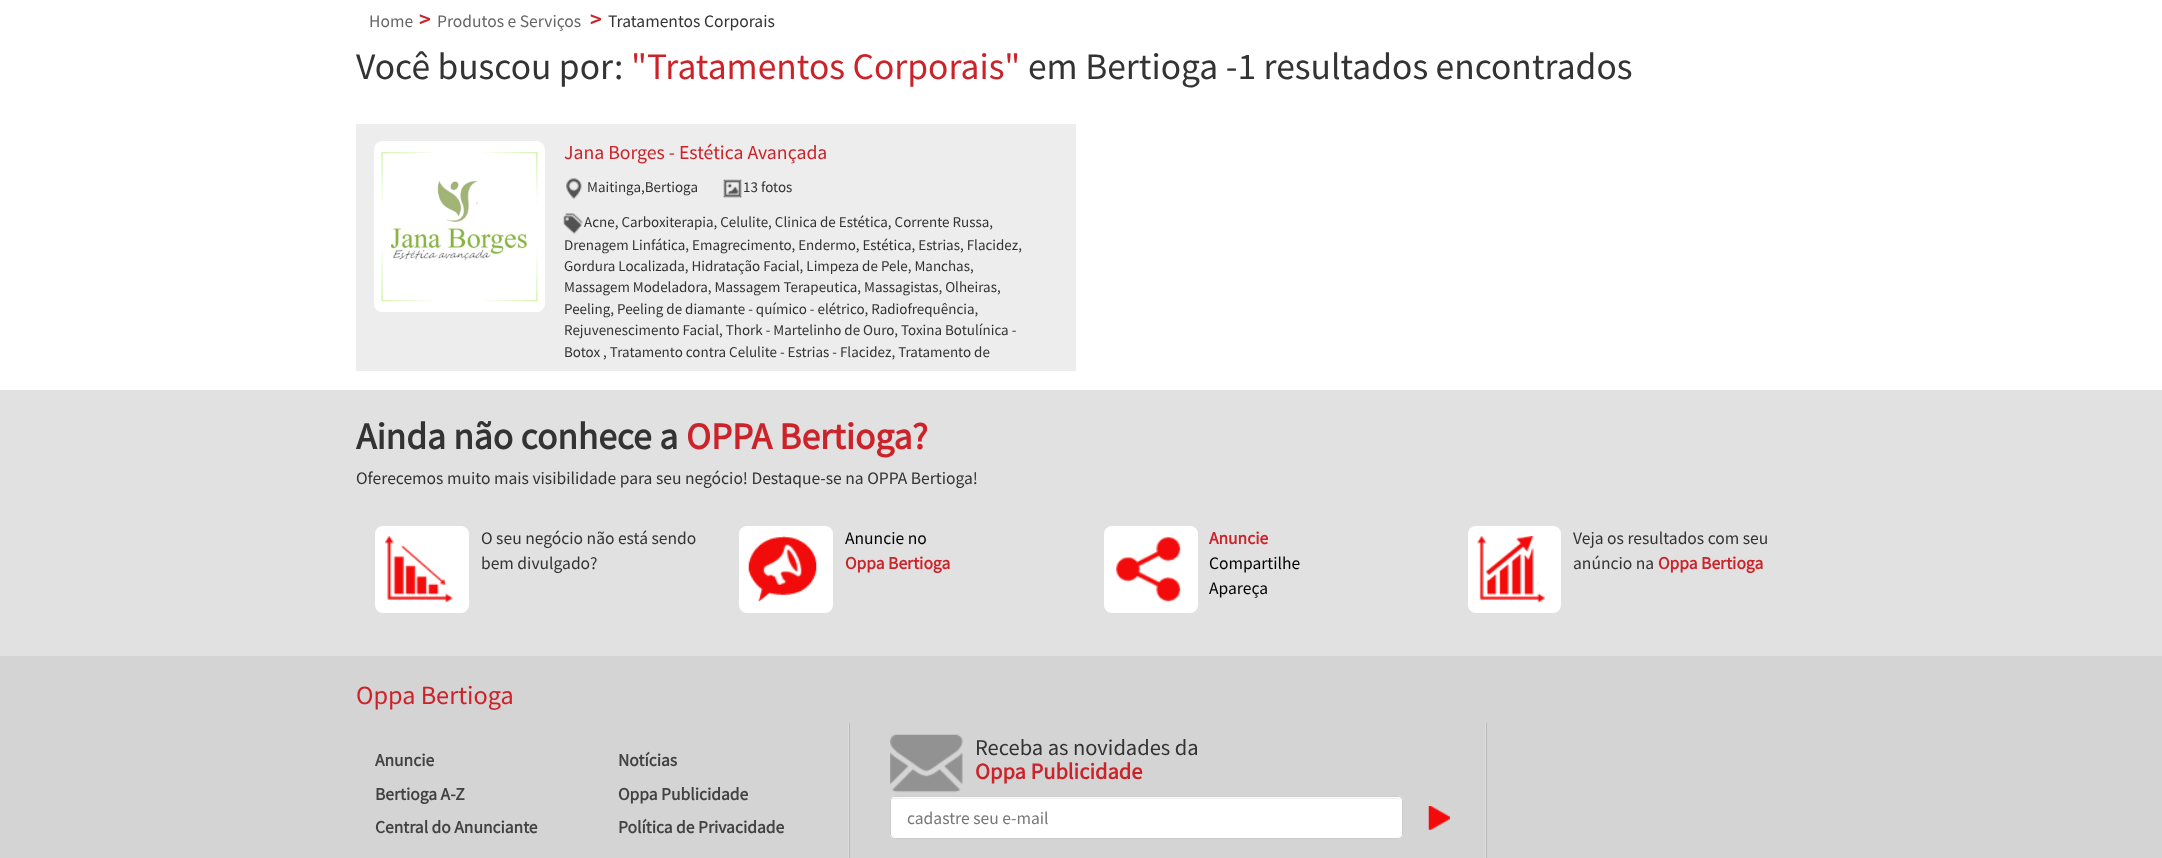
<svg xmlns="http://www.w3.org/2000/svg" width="2162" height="858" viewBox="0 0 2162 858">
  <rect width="100%" height="100%" fill="#ffffff"/>
  <text x="369" y="27" font-family="Source Sans Pro" font-size="17.5" fill="#666666">Home</text>
  <text x="419" y="27" font-family="Source Sans Pro" font-size="22.5" font-weight="bold" fill="#cc2229">&gt;</text>
  <text x="437" y="27" font-family="Source Sans Pro" font-size="17.5" fill="#666666">Produtos e Serviços</text>
  <text x="590" y="27" font-family="Source Sans Pro" font-size="22.5" font-weight="bold" fill="#cc2229">&gt;</text>
  <text x="608" y="27" font-family="Source Sans Pro" font-size="17.5" fill="#333333">Tratamentos Corporais</text>
  <text x="356" y="79" font-family="Source Sans Pro" font-size="37.5" fill="#333333">Você buscou por:</text>
  <text x="631" y="79" font-family="Source Sans Pro" font-size="37.5" fill="#cc2229">"Tratamentos Corporais"</text>
  <text x="1028" y="79" font-family="Source Sans Pro" font-size="37.5" fill="#333333">em Bertioga -1 resultados encontrados</text>
  <rect x="356" y="124" width="720" height="247" fill="#ededed"/>
  <image x="374" y="141" width="171" height="171" href="img1.png"/>
  <text x="564" y="159" font-family="Source Sans Pro" font-size="19.75" fill="#cc2229">Jana Borges - Estética Avançada</text>
  <image x="566" y="178" width="16" height="21" href="img2.png"/>
  <text x="587" y="192" font-family="Source Sans Pro" font-size="15" fill="#333333">Maitinga,Bertioga</text>
  <image x="723" y="179" width="19" height="19" href="img3.png"/>
  <text x="743" y="192" font-family="Source Sans Pro" font-size="15" fill="#333333">13 fotos</text>
  <image x="563" y="213" width="20" height="21" href="img4.png"/>
  <text x="584" y="227" font-family="Source Sans Pro" font-size="15" fill="#333333">Acne, Carboxiterapia, Celulite, Clinica de Estética, Corrente Russa,</text>
  <text x="564" y="250" font-family="Source Sans Pro" font-size="15" fill="#333333">Drenagem Linfática, Emagrecimento, Endermo, Estética, Estrias, Flacidez,</text>
  <text x="564" y="271" font-family="Source Sans Pro" font-size="15" fill="#333333">Gordura Localizada, Hidratação Facial, Limpeza de Pele, Manchas,</text>
  <text x="564" y="292" font-family="Source Sans Pro" font-size="15" fill="#333333">Massagem Modeladora, Massagem Terapeutica, Massagistas, Olheiras,</text>
  <text x="564" y="314" font-family="Source Sans Pro" font-size="15" fill="#333333">Peeling, Peeling de diamante - químico - elétrico, Radiofrequência,</text>
  <text x="564" y="335" font-family="Source Sans Pro" font-size="15" fill="#333333">Rejuvenescimento Facial, Thork - Martelinho de Ouro, Toxina Botulínica -</text>
  <text x="564" y="357" font-family="Source Sans Pro" font-size="15" fill="#333333">Botox , Tratamento contra Celulite - Estrias - Flacidez, Tratamento de</text>
  <rect x="0" y="390" width="2162" height="266" fill="#e1e1e1"/>
  <text x="356" y="449" font-family="Source Sans Pro" font-size="37.5" font-weight="bold" fill="#333333">Ainda não conhece a</text>
  <text x="686" y="449" font-family="Source Sans Pro" font-size="37.5" font-weight="bold" fill="#cc2229">OPPA Bertioga?</text>
  <text x="356" y="484" font-family="Source Sans Pro" font-size="17.5" fill="#333333">Oferecemos muito mais visibilidade para seu negócio! Destaque-se na OPPA Bertioga!</text>
  <rect x="375" y="526" width="94" height="87" rx="8" fill="#ffffff"/>
  <image x="385" y="536" width="68" height="67" href="img5.png"/>
  <text x="481" y="544" font-family="Source Sans Pro" font-size="17.5" fill="#333333">O seu negócio não está sendo</text>
  <text x="481" y="569" font-family="Source Sans Pro" font-size="17.5" fill="#333333">bem divulgado?</text>
  <rect x="739" y="526" width="94" height="87" rx="8" fill="#ffffff"/>
  <image x="748" y="536" width="69" height="66" href="img6.png"/>
  <text x="845" y="544" font-family="Source Sans Pro" font-size="17.5" fill="#000000">Anuncie no</text>
  <text x="845" y="569" font-family="Source Sans Pro" font-size="17.5" font-weight="bold" fill="#cc2229">Oppa Bertioga</text>
  <rect x="1104" y="526" width="94" height="87" rx="8" fill="#ffffff"/>
  <image x="1116" y="537" width="65" height="65" href="img7.png"/>
  <text x="1209" y="544" font-family="Source Sans Pro" font-size="17.5" font-weight="bold" fill="#cc2229">Anuncie</text>
  <text x="1209" y="569" font-family="Source Sans Pro" font-size="17.5" fill="#000000">Compartilhe</text>
  <text x="1209" y="594" font-family="Source Sans Pro" font-size="17.5" fill="#000000">Apareça</text>
  <rect x="1468" y="526" width="93" height="87" rx="8" fill="#ffffff"/>
  <image x="1477" y="536" width="68" height="67" href="img8.png"/>
  <text x="1573" y="544" font-family="Source Sans Pro" font-size="17.5" fill="#333333">Veja os resultados com seu</text>
  <text x="1573" y="569" font-family="Source Sans Pro" font-size="17.5" fill="#333333">anúncio na</text>
  <text x="1658" y="569" font-family="Source Sans Pro" font-size="17.5" font-weight="bold" fill="#cc2229">Oppa Bertioga</text>
  <rect x="0" y="656" width="2162" height="202" fill="#d4d4d4"/>
  <text x="356" y="704" font-family="Source Sans Pro" font-size="26.25" fill="#cc2229">Oppa Bertioga</text>
  <text x="375" y="766" font-family="Source Sans Pro" font-size="17.5" font-weight="bold" fill="#424242">Anuncie</text>
  <text x="375" y="800" font-family="Source Sans Pro" font-size="17.5" font-weight="bold" fill="#424242">Bertioga A-Z</text>
  <text x="375" y="833" font-family="Source Sans Pro" font-size="17.5" font-weight="bold" fill="#424242">Central do Anunciante</text>
  <text x="618" y="766" font-family="Source Sans Pro" font-size="17.5" font-weight="bold" fill="#424242">Notícias</text>
  <text x="618" y="800" font-family="Source Sans Pro" font-size="17.5" font-weight="bold" fill="#424242">Oppa Publicidade</text>
  <text x="618" y="833" font-family="Source Sans Pro" font-size="17.5" font-weight="bold" fill="#424242">Política de Privacidade</text>
  <rect x="849" y="723" width="1" height="135" fill="#b9b9b9"/>
  <rect x="848" y="723" width="1" height="135" fill="#dddddd"/>
  <image x="890" y="734" width="73" height="59" href="img9.png"/>
  <text x="975" y="755" font-family="Source Sans Pro" font-size="22.5" fill="#333333">Receba as novidades da</text>
  <text x="975" y="779" font-family="Source Sans Pro" font-size="22.5" font-weight="bold" fill="#cc2229">Oppa Publicidade</text>
  <rect x="890" y="796" width="513" height="43" rx="5" fill="#ffffff"/>
  <path d="M895 799H1398L1400 800C1400 799 1398 798 1397 798H895C893 798 891 800 891 802C891 800 893 799 895 799Z" fill="#ececec"/>
  <rect x="890.5" y="796.5" width="512" height="42" rx="4.5" fill="none" stroke="#cccccc"/>
  <text x="907" y="824" font-family="Source Sans Pro" font-size="17.5" fill="#777777">cadastre seu e-mail</text>
  <image x="1428" y="806" width="22" height="24" href="img10.png"/>
  <rect x="1486" y="723" width="1" height="135" fill="#b9b9b9"/>
  <rect x="1485" y="723" width="1" height="135" fill="#dddddd"/>
</svg>
